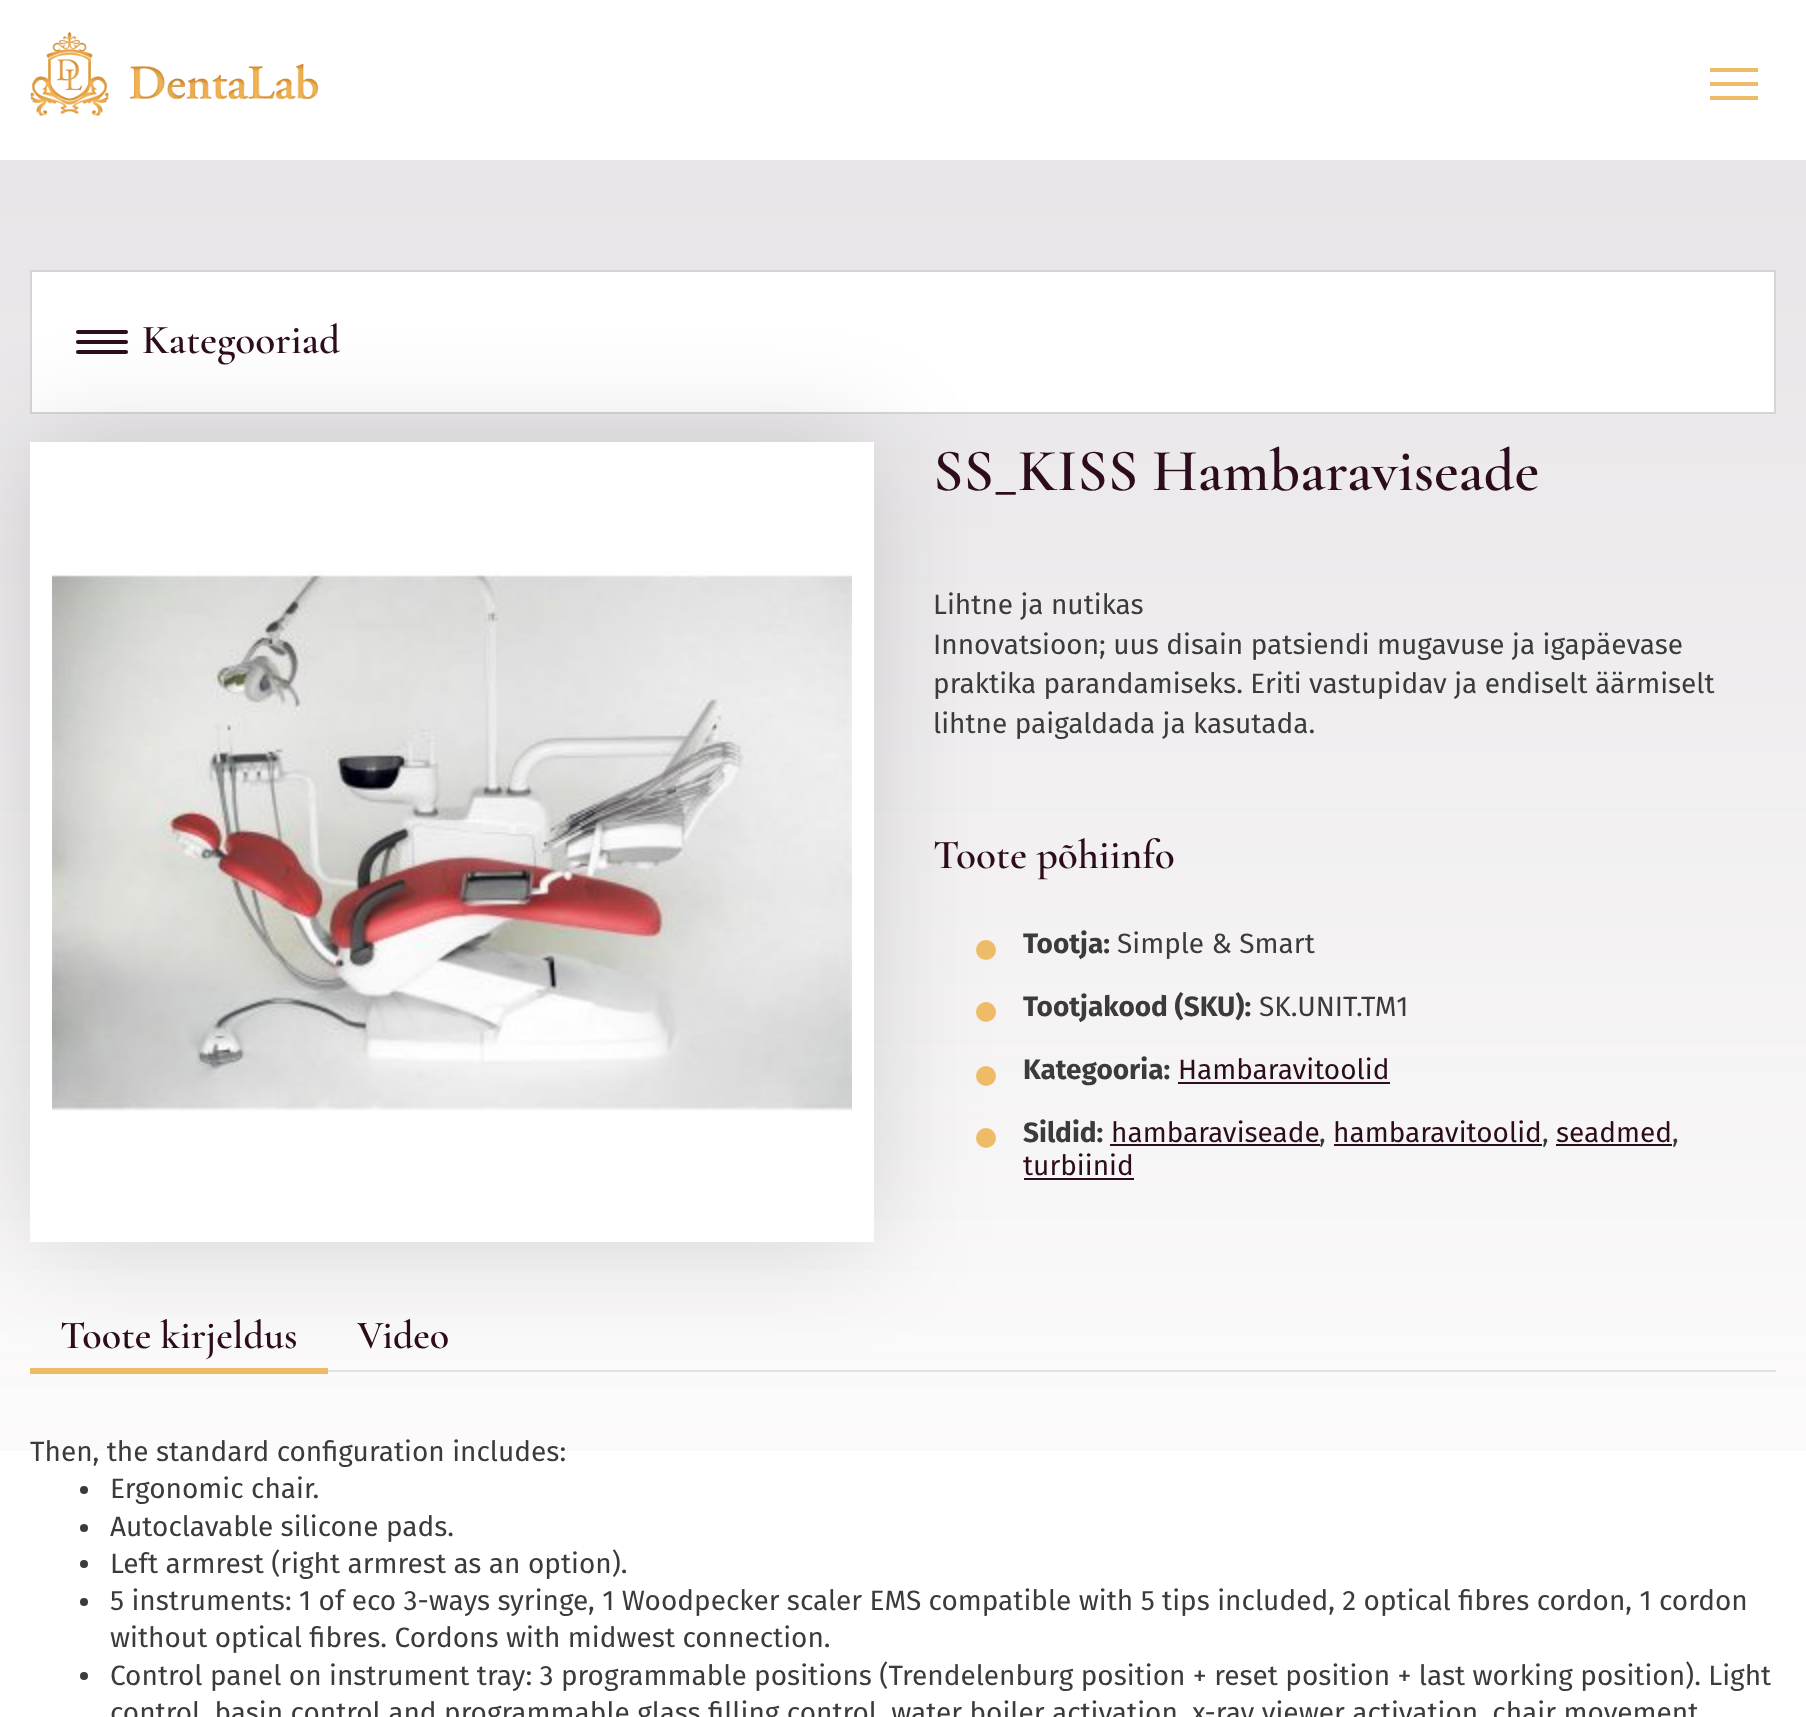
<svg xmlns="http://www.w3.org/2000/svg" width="1806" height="1717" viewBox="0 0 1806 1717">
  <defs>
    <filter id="blur1" x="-50%" y="-200%" width="200%" height="500%"><feGaussianBlur stdDeviation="57"/></filter>
  </defs>
  <rect width="100%" height="100%" fill="#ffffff"/>
  <image x="30" y="32" width="288" height="84" href="img1.png"/>
  <rect x="1710" y="68" width="48" height="4" fill="#eebc67"/>
  <rect x="1710" y="82" width="48" height="4" fill="#eebc67"/>
  <rect x="1710" y="96" width="48" height="4" fill="#eebc67"/>
  <image x="0" y="160" width="1806" height="1291" href="img2.png"/>
  <rect x="31" y="271" width="1744" height="142" fill="#ffffff" stroke="#d5d5d5" stroke-width="2"/>
  <rect x="76" y="330" width="52" height="4" rx="2" fill="#2c0c1d"/>
  <rect x="76" y="340" width="52" height="4" rx="2" fill="#2c0c1d"/>
  <rect x="76" y="350" width="52" height="4" rx="2" fill="#2c0c1d"/>
  <text x="142" y="353" font-family="Cormorant Garamond" font-size="41.25" font-weight="600" fill="#2c0c1d">Kategooriad</text>
  <rect x="328" y="1370" width="1448" height="2" fill="#dee2e6"/>
  <rect x="30" y="442" width="844" height="800" fill="#000000" fill-opacity="0.15" filter="url(#blur1)"/>
  <rect x="30" y="442" width="844" height="800" fill="#ffffff"/>
  <image x="52" y="570" width="800" height="541" href="img3.png"/>
  <text x="933" y="490" font-family="Cormorant Garamond" font-size="60" font-weight="600" fill="#2c0c1d">SS_KISS Hambaraviseade</text>
  <text x="933" y="614" font-family="Fira Sans" font-size="28" fill="#3b3b39">Lihtne ja nutikas</text>
  <text x="933" y="654" font-family="Fira Sans" font-size="28" fill="#3b3b39">Innovatsioon; uus disain patsiendi mugavuse ja igapäevase</text>
  <text x="933" y="693" font-family="Fira Sans" font-size="28" fill="#3b3b39">praktika parandamiseks. Eriti vastupidav ja endiselt äärmiselt</text>
  <text x="933" y="733" font-family="Fira Sans" font-size="28" fill="#3b3b39">lihtne paigaldada ja kasutada.</text>
  <text x="933" y="868" font-family="Cormorant Garamond" font-size="41.25" font-weight="600" fill="#2c0c1d">Toote põhiinfo</text>
  <circle cx="986" cy="950" r="10" fill="#eebc67"/>
  <text x="1023" y="953" font-family="Fira Sans" font-size="28" font-weight="bold" fill="#3b3b39">Tootja:</text>
  <text x="1117" y="953" font-family="Fira Sans" font-size="28" fill="#3b3b39">Simple &amp; Smart</text>
  <circle cx="986" cy="1012" r="10" fill="#eebc67"/>
  <text x="1023" y="1016" font-family="Fira Sans" font-size="28" font-weight="bold" fill="#3b3b39">Tootjakood (SKU):</text>
  <text x="1259" y="1016" font-family="Fira Sans" font-size="28" fill="#3b3b39">SK.UNIT.TM1</text>
  <circle cx="986" cy="1076" r="10" fill="#eebc67"/>
  <text x="1023" y="1079" font-family="Fira Sans" font-size="28" font-weight="bold" fill="#3b3b39">Kategooria:</text>
  <text x="1178" y="1079" font-family="Fira Sans" font-size="28" fill="#2c0c1d">Hambaravitoolid</text>
  <rect x="1178" y="1082" width="212" height="2" fill="#2c0c1d"/>
  <circle cx="986" cy="1138" r="10" fill="#eebc67"/>
  <text x="1023" y="1142" font-family="Fira Sans" font-size="28" font-weight="bold" fill="#3b3b39">Sildid:</text>
  <text x="1111" y="1142" font-family="Fira Sans" font-size="28" fill="#2c0c1d">hambaraviseade</text>
  <rect x="1110" y="1144" width="210" height="2" fill="#2c0c1d"/>
  <text x="1319" y="1142" font-family="Fira Sans" font-size="28" fill="#3b3b39">,</text>
  <text x="1333" y="1142" font-family="Fira Sans" font-size="28" fill="#2c0c1d">hambaravitoolid</text>
  <rect x="1334" y="1144" width="208" height="2" fill="#2c0c1d"/>
  <text x="1542" y="1142" font-family="Fira Sans" font-size="28" fill="#3b3b39">,</text>
  <text x="1556" y="1142" font-family="Fira Sans" font-size="28" fill="#2c0c1d">seadmed</text>
  <rect x="1556" y="1144" width="116" height="2" fill="#2c0c1d"/>
  <text x="1672" y="1142" font-family="Fira Sans" font-size="28" fill="#3b3b39">,</text>
  <text x="1023" y="1175" font-family="Fira Sans" font-size="28" fill="#2c0c1d">turbiinid</text>
  <rect x="1024" y="1178" width="110" height="2" fill="#2c0c1d"/>
  <text x="60" y="1348" font-family="Cormorant Garamond" font-size="40" font-weight="600" fill="#2c0c1d">Toote kirjeldus</text>
  <rect x="30" y="1368" width="298" height="6" fill="#eebc67"/>
  <text x="357" y="1348" font-family="Cormorant Garamond" font-size="40" font-weight="600" fill="#2c0c1d">Video</text>
  <text x="30" y="1461" font-family="Fira Sans" font-size="28" fill="#3b3b39">Then, the standard configuration includes:</text>
  <circle cx="84" cy="1490" r="4" fill="#3b3b39"/>
  <text x="110" y="1498" font-family="Fira Sans" font-size="28" fill="#3b3b39">Ergonomic chair.</text>
  <circle cx="84" cy="1528" r="4" fill="#3b3b39"/>
  <text x="110" y="1536" font-family="Fira Sans" font-size="28" fill="#3b3b39">Autoclavable silicone pads.</text>
  <circle cx="84" cy="1564" r="4" fill="#3b3b39"/>
  <text x="110" y="1573" font-family="Fira Sans" font-size="28" fill="#3b3b39">Left armrest (right armrest as an option).</text>
  <circle cx="84" cy="1602" r="4" fill="#3b3b39"/>
  <text x="110" y="1610" font-family="Fira Sans" font-size="28" fill="#3b3b39">5 instruments: 1 of eco 3-ways syringe, 1 Woodpecker scaler EMS compatible with 5 tips included, 2 optical fibres cordon, 1 cordon</text>
  <text x="110" y="1647" font-family="Fira Sans" font-size="28" fill="#3b3b39">without optical fibres. Cordons with midwest connection.</text>
  <circle cx="84" cy="1676" r="4" fill="#3b3b39"/>
  <text x="110" y="1685" font-family="Fira Sans" font-size="28" fill="#3b3b39">Control panel on instrument tray: 3 programmable positions (Trendelenburg position + reset position + last working position). Light</text>
  <text x="110" y="1722" font-family="Fira Sans" font-size="28" fill="#3b3b39">control, basin control and programmable glass filling control, water boiler activation, x-ray viewer activation. chair movement</text>
</svg>
